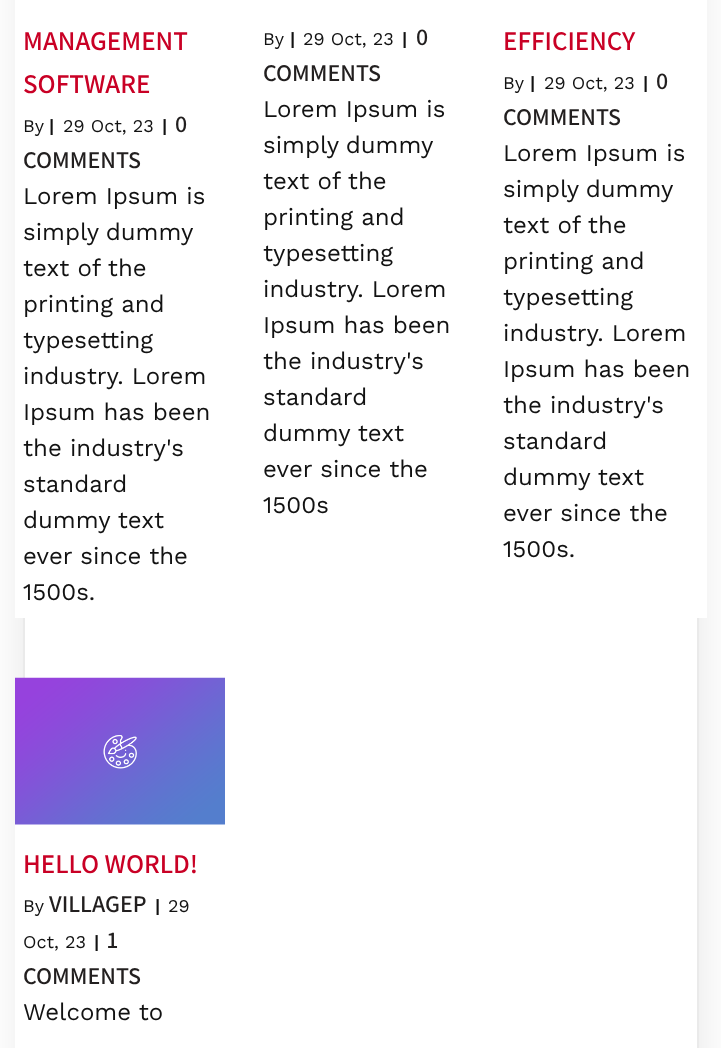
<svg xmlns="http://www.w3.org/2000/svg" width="721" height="1048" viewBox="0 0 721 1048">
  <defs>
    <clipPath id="clip1"><path d="M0 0H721V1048H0ZM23-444H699V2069H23Z" clip-rule="evenodd"/></clipPath>
    <filter id="blur1" x="-50%" y="-200%" width="200%" height="500%"><feGaussianBlur stdDeviation="22.5"/></filter>
  </defs>
  <rect width="100%" height="100%" fill="#ffffff"/>
  <g clip-path="url(#clip1)">
    <rect x="23" y="-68" width="676" height="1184" fill="#000000" fill-opacity="0.1" filter="url(#blur1)"/>
  </g>
  <rect x="24" y="-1" width="674" height="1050" fill="none" stroke="#eaeaea" stroke-width="2"/>
  <rect x="15" y="0" width="10" height="618" fill="#ffffff"/>
  <text x="23" y="50" font-family="Assistant" font-size="27" font-weight="600" fill="#c90025">MANAGEMENT</text>
  <text x="23" y="93" font-family="Assistant" font-size="27" font-weight="600" fill="#c90025">SOFTWARE</text>
  <text x="23" y="132" font-family="Work Sans" font-size="18" fill="#121212">By</text>
  <text x="49" y="132" font-family="Work Sans" font-size="18" font-weight="600" fill="#121212">|</text>
  <text x="63" y="132" font-family="Work Sans" font-size="18" fill="#121212">29 Oct, 23</text>
  <text x="162" y="132" font-family="Work Sans" font-size="18" font-weight="600" fill="#121212">|</text>
  <text x="175" y="132" font-family="Assistant" font-size="24" font-weight="600" fill="#221f1f">0</text>
  <text x="23" y="168" font-family="Assistant" font-size="24" font-weight="600" fill="#221f1f">COMMENTS</text>
  <text x="23" y="204" font-family="Work Sans" font-size="24" fill="#121212">Lorem Ipsum is</text>
  <text x="23" y="240" word-spacing="-1" font-family="Work Sans" font-size="24" fill="#121212">simply dummy</text>
  <text x="23" y="276" font-family="Work Sans" font-size="24" fill="#121212">text of the</text>
  <text x="23" y="312" font-family="Work Sans" font-size="24" fill="#121212">printing and</text>
  <text x="23" y="348" font-family="Work Sans" font-size="24" fill="#121212">typesetting</text>
  <text x="23" y="384" font-family="Work Sans" font-size="24" fill="#121212">industry. Lorem</text>
  <text x="23" y="420" font-family="Work Sans" font-size="24" fill="#121212">Ipsum has been</text>
  <text x="23" y="456" font-family="Work Sans" font-size="24" fill="#121212">the industry's</text>
  <text x="23" y="492" font-family="Work Sans" font-size="24" fill="#121212">standard</text>
  <text x="23" y="528" font-family="Work Sans" font-size="24" fill="#121212">dummy text</text>
  <text x="23" y="564" font-family="Work Sans" font-size="24" fill="#121212">ever since the</text>
  <text x="23" y="600" font-family="Work Sans" font-size="24" fill="#121212">1500s.</text>
  <text x="263" y="45" font-family="Work Sans" font-size="18" fill="#121212">By</text>
  <text x="290" y="45" font-family="Work Sans" font-size="18" font-weight="600" fill="#121212">|</text>
  <text x="303" y="45" font-family="Work Sans" font-size="18" fill="#121212">29 Oct, 23</text>
  <text x="402" y="45" font-family="Work Sans" font-size="18" font-weight="600" fill="#121212">|</text>
  <text x="416" y="45" font-family="Assistant" font-size="24" font-weight="600" fill="#221f1f">0</text>
  <text x="263" y="81" font-family="Assistant" font-size="24" font-weight="600" fill="#221f1f">COMMENTS</text>
  <text x="263" y="117" font-family="Work Sans" font-size="24" fill="#121212">Lorem Ipsum is</text>
  <text x="263" y="153" word-spacing="-1" font-family="Work Sans" font-size="24" fill="#121212">simply dummy</text>
  <text x="263" y="189" font-family="Work Sans" font-size="24" fill="#121212">text of the</text>
  <text x="263" y="225" font-family="Work Sans" font-size="24" fill="#121212">printing and</text>
  <text x="263" y="261" font-family="Work Sans" font-size="24" fill="#121212">typesetting</text>
  <text x="263" y="297" font-family="Work Sans" font-size="24" fill="#121212">industry. Lorem</text>
  <text x="263" y="333" font-family="Work Sans" font-size="24" fill="#121212">Ipsum has been</text>
  <text x="263" y="369" font-family="Work Sans" font-size="24" fill="#121212">the industry's</text>
  <text x="263" y="405" font-family="Work Sans" font-size="24" fill="#121212">standard</text>
  <text x="263" y="441" font-family="Work Sans" font-size="24" fill="#121212">dummy text</text>
  <text x="263" y="477" font-family="Work Sans" font-size="24" fill="#121212">ever since the</text>
  <text x="263" y="513" font-family="Work Sans" font-size="24" fill="#121212">1500s</text>
  <rect x="697" y="0" width="10" height="618" fill="#ffffff"/>
  <text x="503" y="50" font-family="Assistant" font-size="27" font-weight="600" fill="#c90025">EFFICIENCY</text>
  <text x="503" y="89" font-family="Work Sans" font-size="18" fill="#121212">By</text>
  <text x="530" y="89" font-family="Work Sans" font-size="18" font-weight="600" fill="#121212">|</text>
  <text x="544" y="89" font-family="Work Sans" font-size="18" fill="#121212">29 Oct, 23</text>
  <text x="643" y="89" font-family="Work Sans" font-size="18" font-weight="600" fill="#121212">|</text>
  <text x="656" y="89" font-family="Assistant" font-size="24" font-weight="600" fill="#221f1f">0</text>
  <text x="503" y="125" font-family="Assistant" font-size="24" font-weight="600" fill="#221f1f">COMMENTS</text>
  <text x="503" y="161" font-family="Work Sans" font-size="24" fill="#121212">Lorem Ipsum is</text>
  <text x="503" y="197" word-spacing="-1" font-family="Work Sans" font-size="24" fill="#121212">simply dummy</text>
  <text x="503" y="233" font-family="Work Sans" font-size="24" fill="#121212">text of the</text>
  <text x="503" y="269" font-family="Work Sans" font-size="24" fill="#121212">printing and</text>
  <text x="503" y="305" font-family="Work Sans" font-size="24" fill="#121212">typesetting</text>
  <text x="503" y="341" font-family="Work Sans" font-size="24" fill="#121212">industry. Lorem</text>
  <text x="503" y="377" font-family="Work Sans" font-size="24" fill="#121212">Ipsum has been</text>
  <text x="503" y="413" font-family="Work Sans" font-size="24" fill="#121212">the industry's</text>
  <text x="503" y="449" font-family="Work Sans" font-size="24" fill="#121212">standard</text>
  <text x="503" y="485" font-family="Work Sans" font-size="24" fill="#121212">dummy text</text>
  <text x="503" y="521" font-family="Work Sans" font-size="24" fill="#121212">ever since the</text>
  <text x="503" y="557" font-family="Work Sans" font-size="24" fill="#121212">1500s.</text>
  <rect x="15" y="824" width="10" height="224" fill="#ffffff"/>
  <image x="15" y="677" width="210" height="148" href="img1.png"/>
  <text x="23" y="873" font-family="Assistant" font-size="27" font-weight="600" fill="#c90025">HELLO WORLD!</text>
  <text x="23" y="912" font-family="Work Sans" font-size="18" fill="#121212">By</text>
  <text x="49" y="912" font-family="Assistant" font-size="24" font-weight="600" fill="#221f1f">VILLAGEP</text>
  <text x="155" y="912" font-family="Work Sans" font-size="18" font-weight="600" fill="#121212">|</text>
  <text x="168" y="912" font-family="Work Sans" font-size="18" fill="#121212">29</text>
  <text x="23" y="948" font-family="Work Sans" font-size="18" fill="#121212">Oct, 23</text>
  <text x="94" y="948" font-family="Work Sans" font-size="18" font-weight="600" fill="#121212">|</text>
  <text x="107" y="948" font-family="Assistant" font-size="24" font-weight="600" fill="#221f1f">1</text>
  <text x="23" y="984" font-family="Assistant" font-size="24" font-weight="600" fill="#221f1f">COMMENTS</text>
  <text x="23" y="1020" font-family="Work Sans" font-size="24" fill="#121212">Welcome to</text>
</svg>
